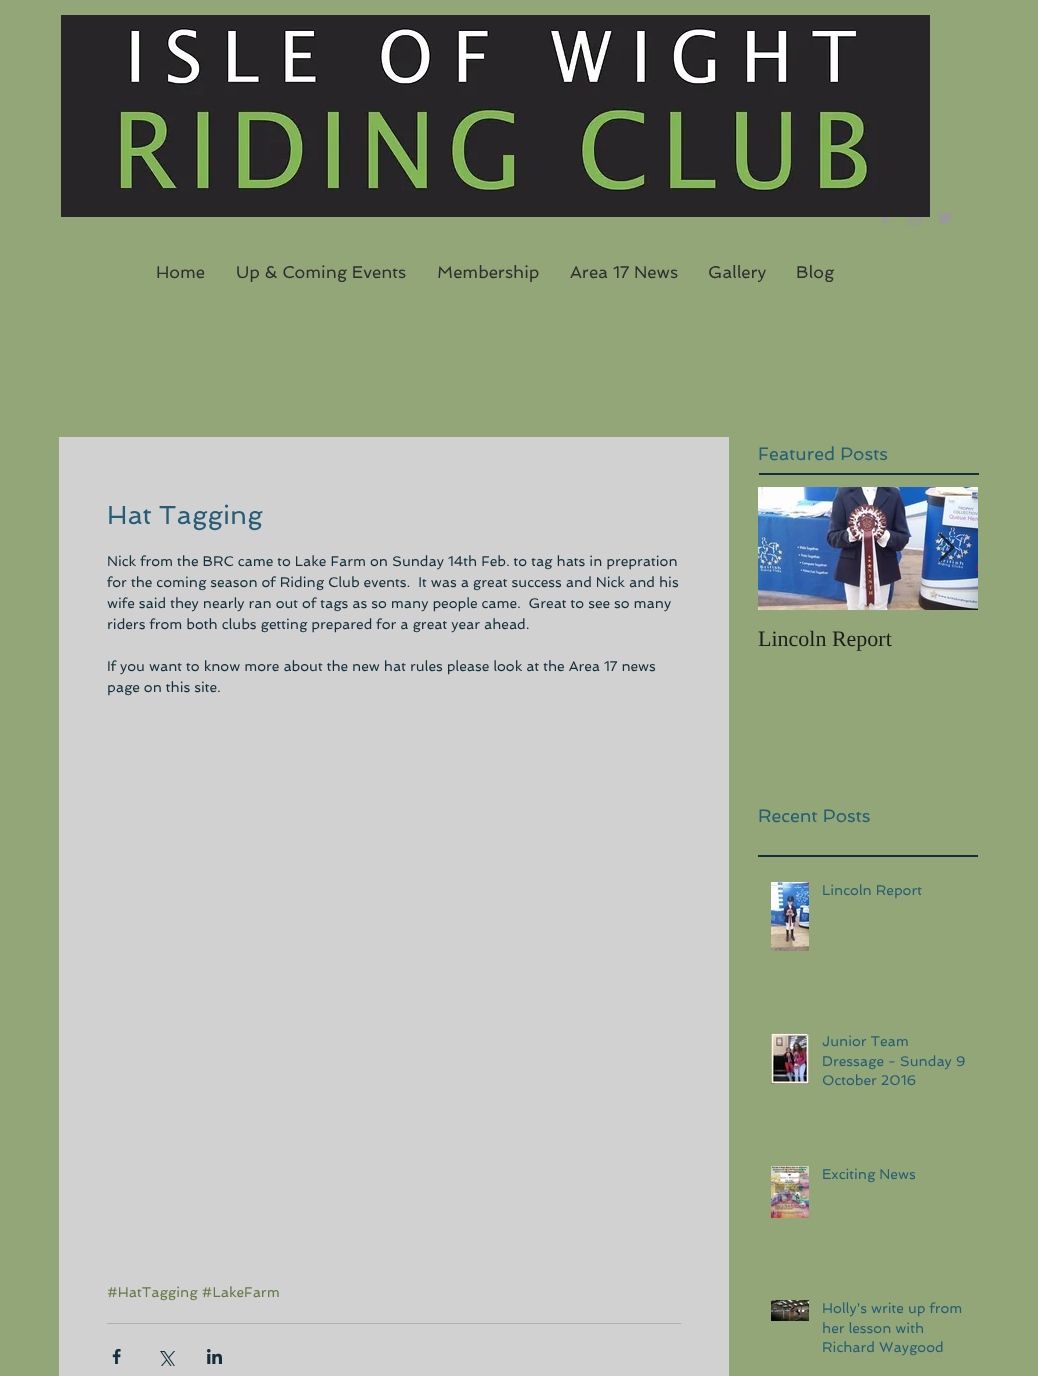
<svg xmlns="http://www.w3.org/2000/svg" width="1038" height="1376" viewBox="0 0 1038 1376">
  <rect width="100%" height="100%" fill="#93a677"/>
  <image x="61" y="15" width="869" height="202" href="img1.png"/>
  <image x="881" y="217" width="8" height="9" href="img2.png"/>
  <image x="908" y="217" width="15" height="9" href="img3.png"/>
  <image x="938" y="212" width="14" height="13" href="img4.png"/>
  <text x="156" y="278" font-family="Spinnaker" font-size="17" fill="#2f2e2e">Home</text>
  <text x="236" y="278" font-family="Spinnaker" font-size="17" fill="#2f2e2e">Up &amp; Coming Events</text>
  <text x="437" y="278" font-family="Spinnaker" font-size="17" fill="#2f2e2e">Membership</text>
  <text x="570" y="278" font-family="Spinnaker" font-size="17" fill="#2f2e2e">Area 17 News</text>
  <text x="708" y="278" font-family="Spinnaker" font-size="17" fill="#2f2e2e">Gallery</text>
  <text x="796" y="278" font-family="Spinnaker" font-size="17" fill="#2f2e2e">Blog</text>
  <text x="758" y="460" font-family="Spinnaker" font-size="18" fill="#265e76">Featured Posts</text>
  <rect x="759" y="473" width="220" height="2" fill="#132f3b"/>
  <rect x="59" y="437" width="670" height="939" fill="#d1d1d1"/>
  <text x="107" y="524" font-family="Spinnaker" font-size="26" fill="#265e76">Hat Tagging</text>
  <text x="107" y="566" font-family="Spinnaker" font-size="14" fill="#132f3b">Nick from the BRC came to Lake Farm on Sunday 14th Feb. to tag hats in prepration</text>
  <text x="107" y="587" font-family="Spinnaker" font-size="14" fill="#132f3b" xml:space="preserve">for the coming season of Riding Club events.  It was a great success and Nick and his</text>
  <text x="107" y="608" font-family="Spinnaker" font-size="14" fill="#132f3b" xml:space="preserve">wife said they nearly ran out of tags as so many people came.  Great to see so many</text>
  <text x="107" y="629" font-family="Spinnaker" font-size="14" fill="#132f3b">riders from both clubs getting prepared for a great year ahead.</text>
  <text x="107" y="671" font-family="Spinnaker" font-size="14" fill="#132f3b">If you want to know more about the new hat rules please look at the Area 17 news</text>
  <text x="107" y="692" font-family="Spinnaker" font-size="14" fill="#132f3b">page on this site.</text>
  <text x="107" y="1297" font-family="Spinnaker" font-size="14" fill="#657a45">#HatTagging #LakeFarm</text>
  <rect x="107" y="1323" width="574" height="1" fill="#abb1b3"/>
  <image x="112" y="1349" width="9" height="15" href="img5.png"/>
  <image x="160" y="1351" width="15" height="15" href="img6.png"/>
  <image x="207" y="1349" width="15" height="15" href="img7.png"/>
  <image x="758" y="487" width="220" height="123" href="img9.png"/>
  <image x="938" y="533" width="17" height="29" href="img8.png"/>
  <text x="758" y="646" font-family="Liberation Serif" font-size="22" fill="#1c1c1c">Lincoln Report</text>
  <text x="758" y="822" font-family="Spinnaker" font-size="18" fill="#265e76">Recent Posts</text>
  <rect x="758" y="855" width="220" height="2" fill="#132f3b"/>
  <image x="771" y="882" width="38" height="69" href="img10.png"/>
  <text x="822" y="895" font-family="Spinnaker" font-size="14" fill="#265e76">Lincoln Report</text>
  <image x="771" y="1033" width="38" height="51" href="img11.png"/>
  <text x="822" y="1046" font-family="Spinnaker" font-size="14" fill="#265e76">Junior Team</text>
  <text x="822" y="1066" font-family="Spinnaker" font-size="14" fill="#265e76">Dressage - Sunday 9</text>
  <text x="822" y="1085" font-family="Spinnaker" font-size="14" fill="#265e76">October 2016</text>
  <image x="771" y="1166" width="38" height="52" href="img12.png"/>
  <text x="822" y="1179" font-family="Spinnaker" font-size="14" fill="#265e76">Exciting News</text>
  <image x="771" y="1300" width="38" height="21" href="img13.png"/>
  <text x="822" y="1313" font-family="Spinnaker" font-size="14" fill="#265e76">Holly's write up from</text>
  <text x="822" y="1333" font-family="Spinnaker" font-size="14" fill="#265e76">her lesson with</text>
  <text x="822" y="1352" font-family="Spinnaker" font-size="14" fill="#265e76">Richard Waygood</text>
</svg>
